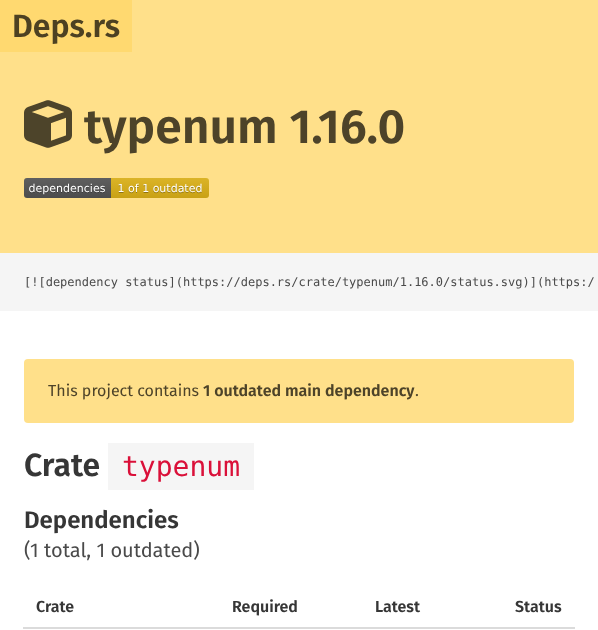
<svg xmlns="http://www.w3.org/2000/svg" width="598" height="630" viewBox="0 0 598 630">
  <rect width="100%" height="100%" fill="#ffffff"/>
  <rect x="0" y="0" width="598" height="253" fill="#ffe08a"/>
  <rect x="0" y="0" width="132" height="52" fill="#ffd970"/>
  <text x="12" y="37" font-family="Fira Sans" font-size="32" font-weight="600" fill="#4d4122">Deps.rs</text>
  <image x="24" y="100" width="48" height="48" href="img1.png"/>
  <text x="84" y="143" font-family="Fira Sans" font-size="48" font-weight="600" fill="#4d4329">typenum 1.16.0</text>
  <image x="24" y="178" width="185" height="20" href="img2.png"/>
  <rect x="0" y="253" width="598" height="58" fill="#f5f5f5"/>
  <text x="24" y="286" font-family="DejaVu Sans Mono" font-size="12" fill="#4a4a4a">[![dependency status](https://deps.rs/crate/typenum/1.16.0/status.svg)](https:/</text>
  <rect x="24" y="359" width="550" height="64" rx="4" fill="#ffe08a"/>
  <text x="48" y="396" font-family="Fira Sans" font-size="16" fill="#4d4329">This project contains</text>
  <text x="203" y="396" font-family="Fira Sans" font-size="16" font-weight="600" fill="#4d4329">1 outdated main dependency</text>
  <text x="415" y="396" font-family="Fira Sans" font-size="16" fill="#4d4329">.</text>
  <text x="24" y="476" font-family="Fira Sans" font-size="32" font-weight="600" fill="#363636">Crate</text>
  <rect x="108" y="443" width="146" height="47" fill="#f5f5f5"/>
  <text x="122" y="476" font-family="DejaVu Sans Mono" font-size="28" fill="#da1039">typenum</text>
  <text x="24" y="528" font-family="Fira Sans" font-size="24" font-weight="600" fill="#363636">Dependencies</text>
  <text x="24" y="557" font-family="Fira Sans" font-size="20" fill="#4a4a4a">(1 total, 1 outdated)</text>
  <text x="36" y="612" font-family="Fira Sans" font-size="16" font-weight="600" fill="#363636">Crate</text>
  <text x="232" y="612" font-family="Fira Sans" font-size="16" font-weight="600" fill="#363636">Required</text>
  <text x="375" y="612" font-family="Fira Sans" font-size="16" font-weight="600" fill="#363636">Latest</text>
  <rect x="23" y="627" width="552" height="2" fill="#dbdbdb"/>
  <text x="515" y="612" font-family="Fira Sans" font-size="16" font-weight="600" fill="#363636">Status</text>
</svg>
